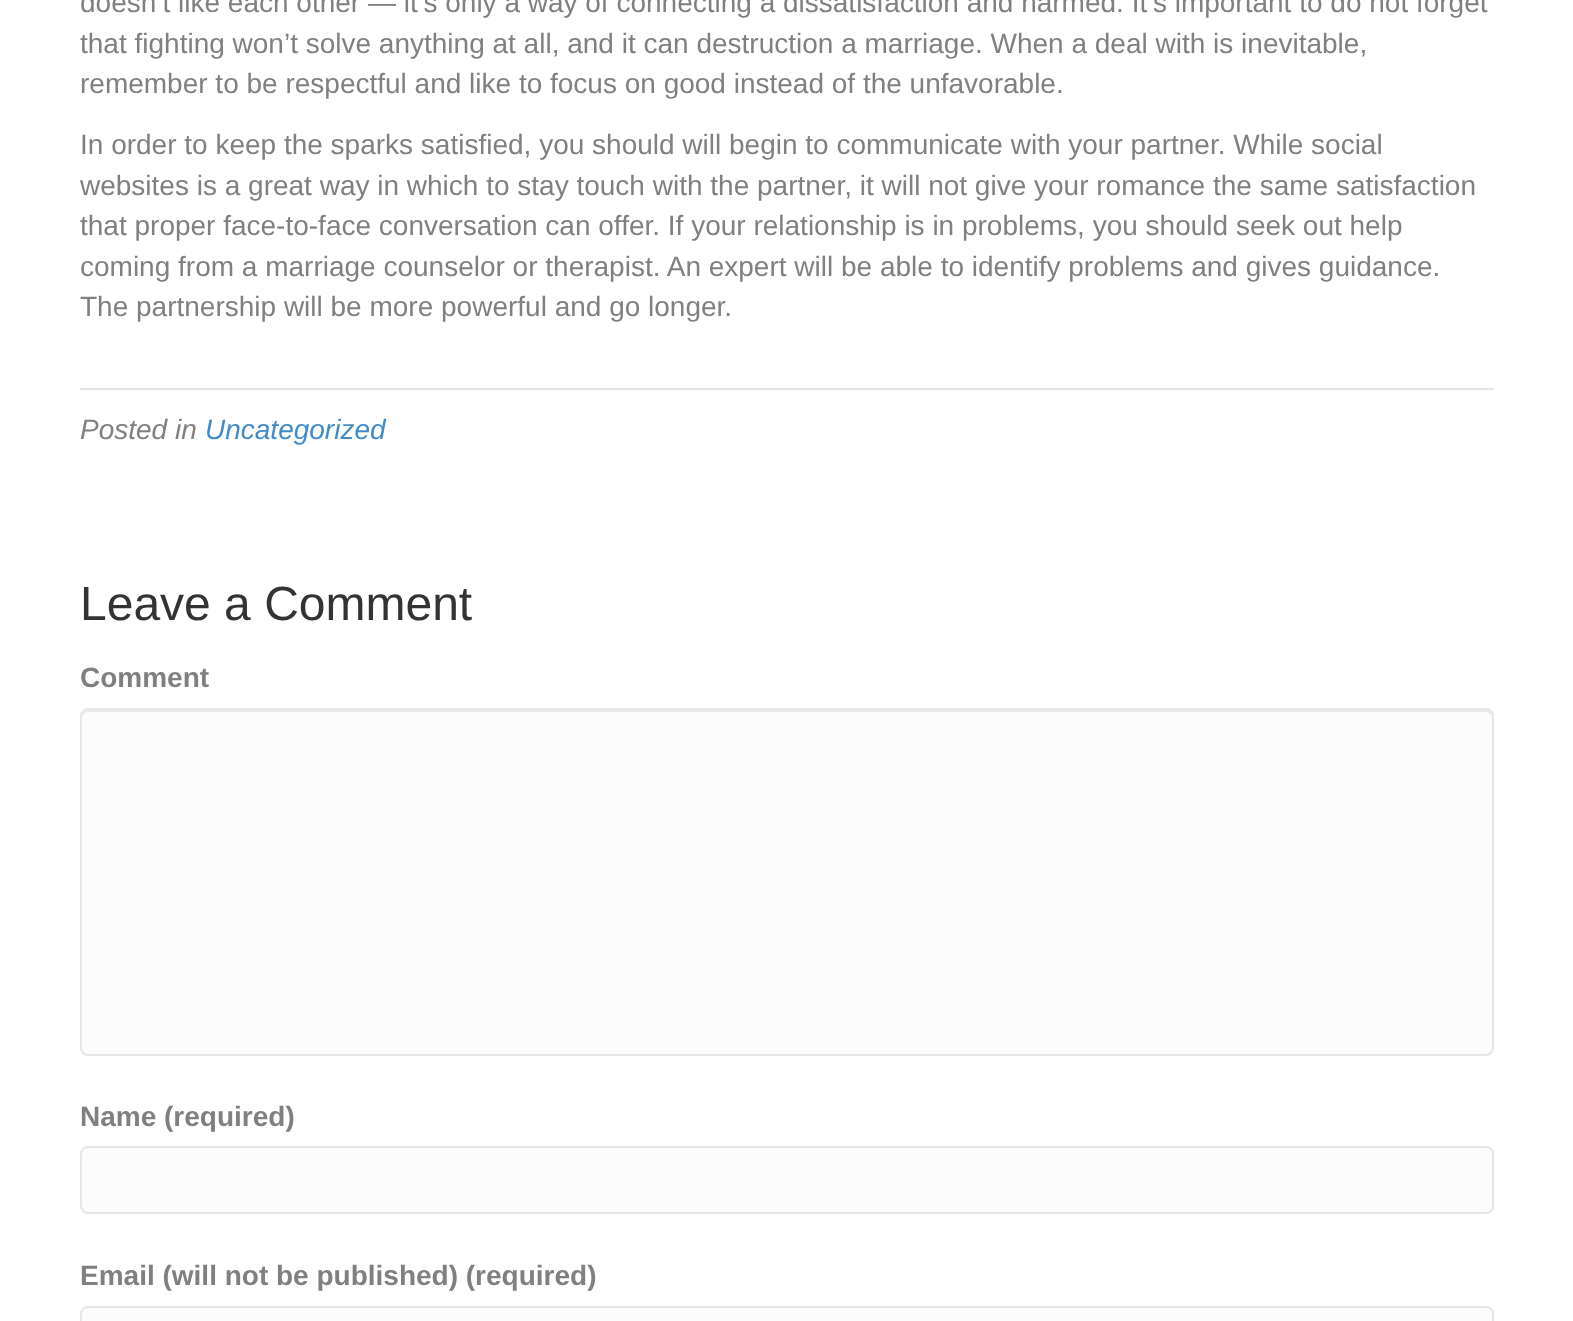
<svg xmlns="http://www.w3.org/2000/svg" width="1573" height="1321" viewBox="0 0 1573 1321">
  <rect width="100%" height="100%" fill="#ffffff"/>
  <text x="80" y="12" font-family="Liberation Sans" font-size="28" fill="#808080">doesn’t like each other — it’s only a way of connecting a dissatisfaction and harmed. It’s important to do not forget</text>
  <text x="80" y="53" font-family="Liberation Sans" font-size="28" fill="#808080">that fighting won’t solve anything at all, and it can destruction a marriage. When a deal with is inevitable,</text>
  <text x="80" y="93" font-family="Liberation Sans" font-size="28" fill="#808080">remember to be respectful and like to focus on good instead of the unfavorable.</text>
  <text x="80" y="154" font-family="Liberation Sans" font-size="28" fill="#808080">In order to keep the sparks satisfied, you should will begin to communicate with your partner. While social</text>
  <text x="80" y="195" font-family="Liberation Sans" font-size="28" fill="#808080">websites is a great way in which to stay touch with the partner, it will not give your romance the same satisfaction</text>
  <text x="80" y="235" font-family="Liberation Sans" font-size="28" fill="#808080">that proper face-to-face conversation can offer. If your relationship is in problems, you should seek out help</text>
  <text x="80" y="276" font-family="Liberation Sans" font-size="28" fill="#808080">coming from a marriage counselor or therapist. An expert will be able to identify problems and gives guidance.</text>
  <text x="80" y="316" font-family="Liberation Sans" font-size="28" fill="#808080">The partnership will be more powerful and go longer.</text>
  <rect x="80" y="388" width="1414" height="2" fill="#e6e6e6"/>
  <text x="80" y="439" font-family="Liberation Sans" font-size="28" font-style="italic" fill="#808080">Posted in</text>
  <text x="205" y="439" font-family="Liberation Sans" font-size="28" font-style="italic" fill="#428bca">Uncategorized</text>
  <text x="80" y="620" font-family="Liberation Sans" font-size="48" fill="#333333">Leave a Comment</text>
  <text x="80" y="687" font-family="Liberation Sans" font-size="28" font-weight="bold" fill="#808080">Comment</text>
  <rect x="80" y="708" width="1414" height="348" rx="8" fill="#fcfcfc"/>
  <path d="M88 712H1486C1489 712 1492 715 1492 718C1492 714 1491 710 1486 710H88C83 710 82 714 82 718C82 715 85 712 88 712Z" fill="#e9e9e9"/>
  <rect x="81" y="709" width="1412" height="346" rx="7" fill="none" stroke="#e6e6e6" stroke-width="2"/>
  <text x="80" y="1126" font-family="Liberation Sans" font-size="28" font-weight="bold" fill="#808080">Name (required)</text>
  <rect x="81" y="1147" width="1412" height="66" rx="7" fill="#fcfcfc" stroke="#e6e6e6" stroke-width="2"/>
  <text x="80" y="1285" font-family="Liberation Sans" font-size="28" font-weight="bold" fill="#808080">Email (will not be published) (required)</text>
  <rect x="81" y="1307" width="1412" height="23" rx="7" fill="#fcfcfc" stroke="#e6e6e6" stroke-width="2"/>
</svg>
